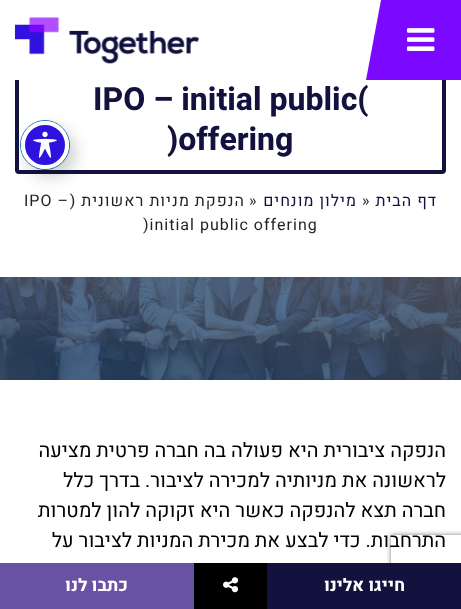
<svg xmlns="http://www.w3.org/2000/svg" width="461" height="609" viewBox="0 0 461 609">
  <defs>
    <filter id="blur1" x="-50%" y="-200%" width="200%" height="500%"><feGaussianBlur stdDeviation="8"/></filter>
    <clipPath id="clip1"><path d="M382 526H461V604H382ZM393 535H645C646 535 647 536 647 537V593C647 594 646 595 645 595H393C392 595 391 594 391 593V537C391 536 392 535 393 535Z" clip-rule="evenodd"/></clipPath>
    <filter id="blur2" x="-50%" y="-200%" width="200%" height="500%"><feGaussianBlur stdDeviation="2.5"/></filter>
  </defs>
  <rect width="100%" height="100%" fill="#ffffff"/>
  <rect x="17" y="28" width="427" height="144" rx="2" fill="none" stroke="#13123f" stroke-width="4"/>
  <rect x="15" y="26" width="351" height="54" fill="#ffffff"/>
  <rect x="366" y="0" width="95" height="80" fill="#7b09ff"/>
  <image x="407" y="28" width="28" height="23" href="img1.png"/>
  <path d="M366 0H381L366 80Z" fill="#ffffff"/>
  <image x="15" y="17" width="184" height="47" href="img2.png"/>
  <text x="93" y="110" font-family="Heebo" font-size="32" font-weight="bold" fill="#13123f">IPO – initial public(</text>
  <text x="167" y="150" font-family="Heebo" font-size="32" font-weight="bold" fill="#13123f">)offering</text>
  <text x="437" y="206" font-family="Heebo" font-size="16" letter-spacing="1" direction="rtl" fill="#13123f">דף הבית</text>
  <text x="362" y="206" font-family="Heebo" font-size="16" letter-spacing="1" fill="#231f20">»</text>
  <text x="357" y="206" font-family="Heebo" font-size="16" letter-spacing="1" direction="rtl" fill="#13123f">מילון מונחים</text>
  <text x="249" y="206" font-family="Heebo" font-size="16" letter-spacing="1" fill="#231f20">»</text>
  <text x="245" y="206" font-family="Heebo" font-size="16" letter-spacing="1" direction="rtl" fill="#231f20">הנפקת מניות ראשונית (</text>
  <text x="24" y="206" font-family="Heebo" font-size="16" letter-spacing="1" fill="#231f20">IPO –</text>
  <text x="143" y="230" font-family="Heebo" font-size="16" letter-spacing="1" fill="#231f20">)initial public offering</text>
  <image x="0" y="277" width="461" height="103" href="img3.png"/>
  <text x="446" y="457" font-family="Heebo" font-size="20" direction="rtl" fill="#000000">הנפקה ציבורית היא פעולה בה חברה פרטית מציעה</text>
  <text x="446" y="487" font-family="Heebo" font-size="20" direction="rtl" fill="#000000">לראשונה את מניותיה למכירה לציבור. בדרך כלל</text>
  <text x="446" y="517" font-family="Heebo" font-size="20" direction="rtl" fill="#000000">חברה תצא להנפקה כאשר היא זקוקה להון למטרות</text>
  <text x="446" y="547" font-family="Heebo" font-size="20" direction="rtl" fill="#000000">התרחבות. כדי לבצע את מכירת המניות לציבור על</text>
  <circle cx="45" cy="145" r="24.5" fill="none" stroke="#1e7ab9"/>
  <rect x="27" y="129" width="48" height="48" rx="24" fill="#000000" fill-opacity="0.2" filter="url(#blur1)"/>
  <circle cx="45" cy="145" r="22" fill="#3012de" stroke="#ffffff" stroke-width="4"/>
  <image x="33" y="131" width="24" height="27" href="img4.png"/>
  <g clip-path="url(#clip1)">
    <rect x="391" y="535" width="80" height="60" rx="2" fill="#808080" filter="url(#blur2)"/>
  </g>
  <rect x="267" y="563" width="194" height="46" fill="#13123f"/>
  <text x="405" y="591" font-family="Heebo" font-size="17.5" font-weight="bold" direction="rtl" fill="#ffffff">חייגו אלינו</text>
  <rect x="194" y="563" width="73" height="46" fill="#000000"/>
  <image x="223" y="577" width="16" height="16" href="img5.png"/>
  <rect x="0" y="563" width="194" height="46" fill="#6852a3"/>
  <text x="128" y="591" font-family="Heebo" font-size="17.5" font-weight="bold" direction="rtl" fill="#ffffff">כתבו לנו</text>
</svg>
